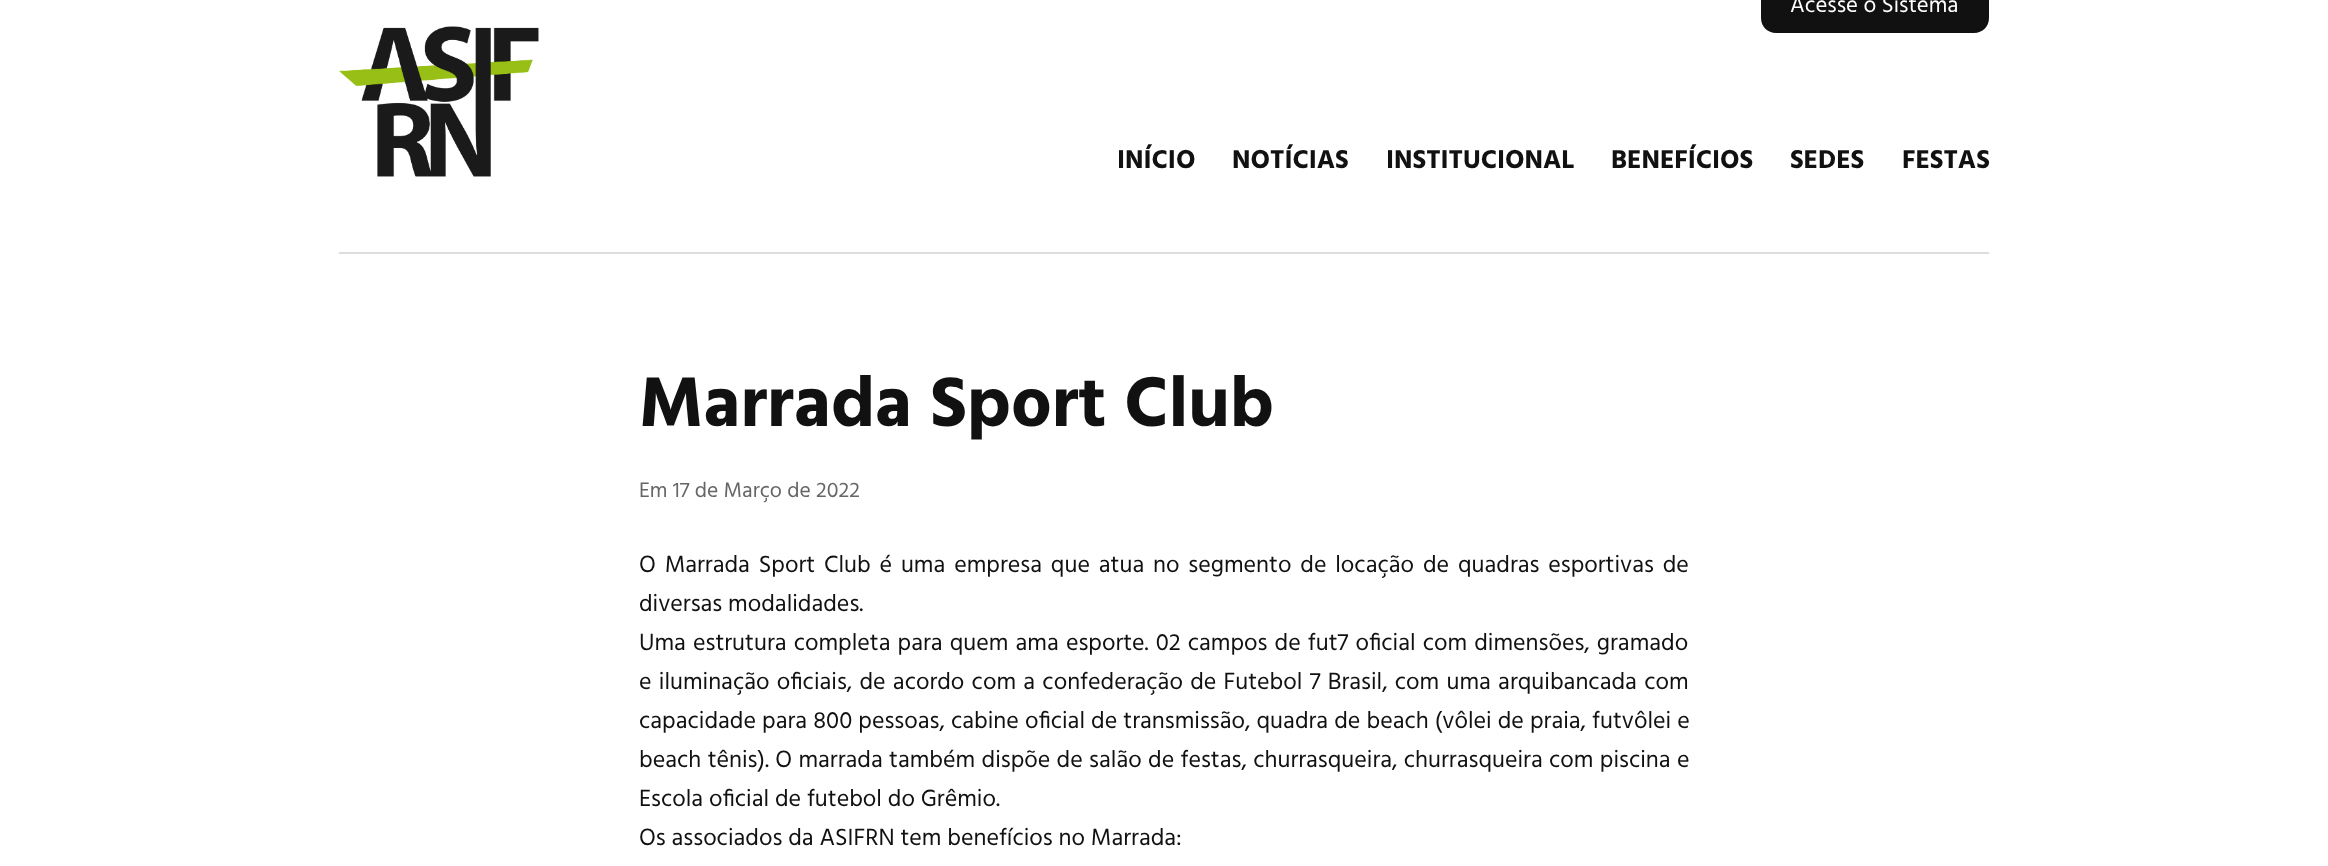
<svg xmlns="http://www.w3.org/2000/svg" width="2328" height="866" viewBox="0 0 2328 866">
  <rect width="100%" height="100%" fill="#ffffff"/>
  <rect x="339" y="252" width="1650" height="2" fill="#dddddd"/>
  <path d="M1761-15H1989V18C1989 26.5 1982.5 33 1974 33H1776C1767.5 33 1761 26.5 1761 18Z" fill="#111111"/>
  <text x="1790" y="12" font-family="Hind" font-size="22.75" fill="#ffffff">Acesse o Sistema</text>
  <image x="339" y="26" width="200" height="151" href="img1.png"/>
  <text x="1117" y="168" font-family="Hind" font-size="26.5" font-weight="bold" fill="#111111">INÍCIO</text>
  <text x="1232" y="168" font-family="Hind" font-size="26.5" font-weight="bold" fill="#111111">NOTÍCIAS</text>
  <text x="1386" y="168" font-family="Hind" font-size="26.5" font-weight="bold" fill="#111111">INSTITUCIONAL</text>
  <text x="1611" y="168" font-family="Hind" font-size="26.5" font-weight="bold" fill="#111111">BENEFÍCIOS</text>
  <text x="1790" y="168" font-family="Hind" font-size="26.5" font-weight="bold" fill="#111111">SEDES</text>
  <text x="1902" y="168" font-family="Hind" font-size="26.5" font-weight="bold" fill="#111111">FESTAS</text>
  <text x="639" y="426" font-family="Hind" font-size="72" font-weight="bold" fill="#111111">Marrada Sport Club</text>
  <text x="639" y="497" font-family="Hind" font-size="21.6" fill="#666666">Em 17 de Março de 2022</text>
  <text x="639" y="572" word-spacing="3" font-family="Hind" font-size="24" fill="#111111">O Marrada Sport Club é uma empresa que atua no segmento de locação de quadras esportivas de</text>
  <text x="639" y="611" font-family="Hind" font-size="24" fill="#111111">diversas modalidades.</text>
  <text x="639" y="650" word-spacing="1.25" font-family="Hind" font-size="24" fill="#111111">Uma estrutura completa para quem ama esporte. 02 campos de fut7 oficial com dimensões, gramado</text>
  <text x="639" y="689" word-spacing="1.4" font-family="Hind" font-size="24" fill="#111111">e iluminação oficiais, de acordo com a confederação de Futebol 7 Brasil, com uma arquibancada com</text>
  <text x="639" y="728" word-spacing="0.25" font-family="Hind" font-size="24" fill="#111111">capacidade para 800 pessoas, cabine oficial de transmissão, quadra de beach (vôlei de praia, futvôlei e</text>
  <text x="639" y="767" word-spacing="0.5" font-family="Hind" font-size="24" fill="#111111">beach tênis). O marrada também dispõe de salão de festas, churrasqueira, churrasqueira com piscina e</text>
  <text x="639" y="806" font-family="Hind" font-size="24" fill="#111111">Escola oficial de futebol do Grêmio.</text>
  <text x="639" y="845" font-family="Hind" font-size="24" fill="#111111">Os associados da ASIFRN tem benefícios no Marrada:</text>
</svg>
